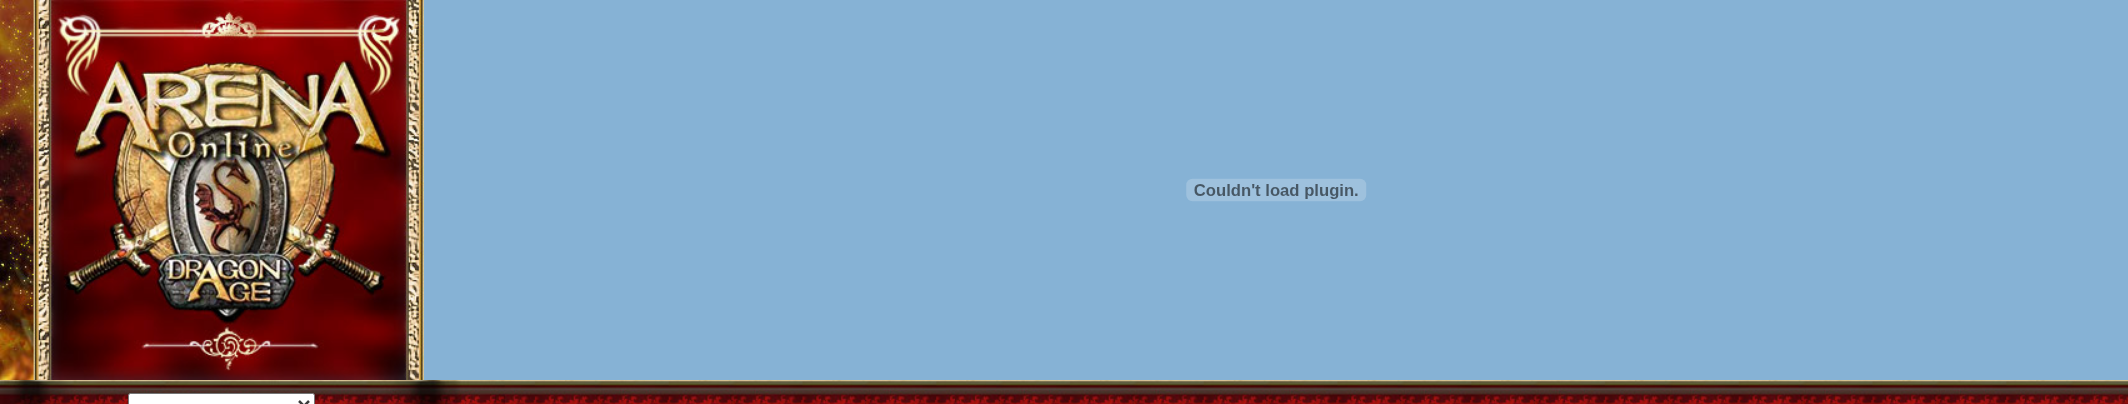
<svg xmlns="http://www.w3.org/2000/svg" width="2128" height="404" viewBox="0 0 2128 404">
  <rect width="100%" height="100%" fill="#ffffff"/>
  <image x="33" y="0" width="391" height="380" href="img1.png"/>
  <image x="0" y="0" width="34" height="380" href="img2.png"/>
  <image x="33" y="0" width="391" height="380" href="img3.png"/>
  <rect x="424" y="0" width="1704" height="380" fill="#86b2d5"/>
  <image x="1186" y="178" width="181" height="24" href="img4.png"/>
  <image x="505" y="380" width="1623" height="24" href="img5.png"/>
  <image x="0" y="380" width="505" height="24" href="img6.png"/>
  <rect x="128.5" y="393.5" width="186" height="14" rx="2" fill="#ffffff" stroke="#767676"/>
  <path d="M299 401L304 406L309 401" fill="none" stroke="#3c3c3c" stroke-width="2.5"/>
</svg>
